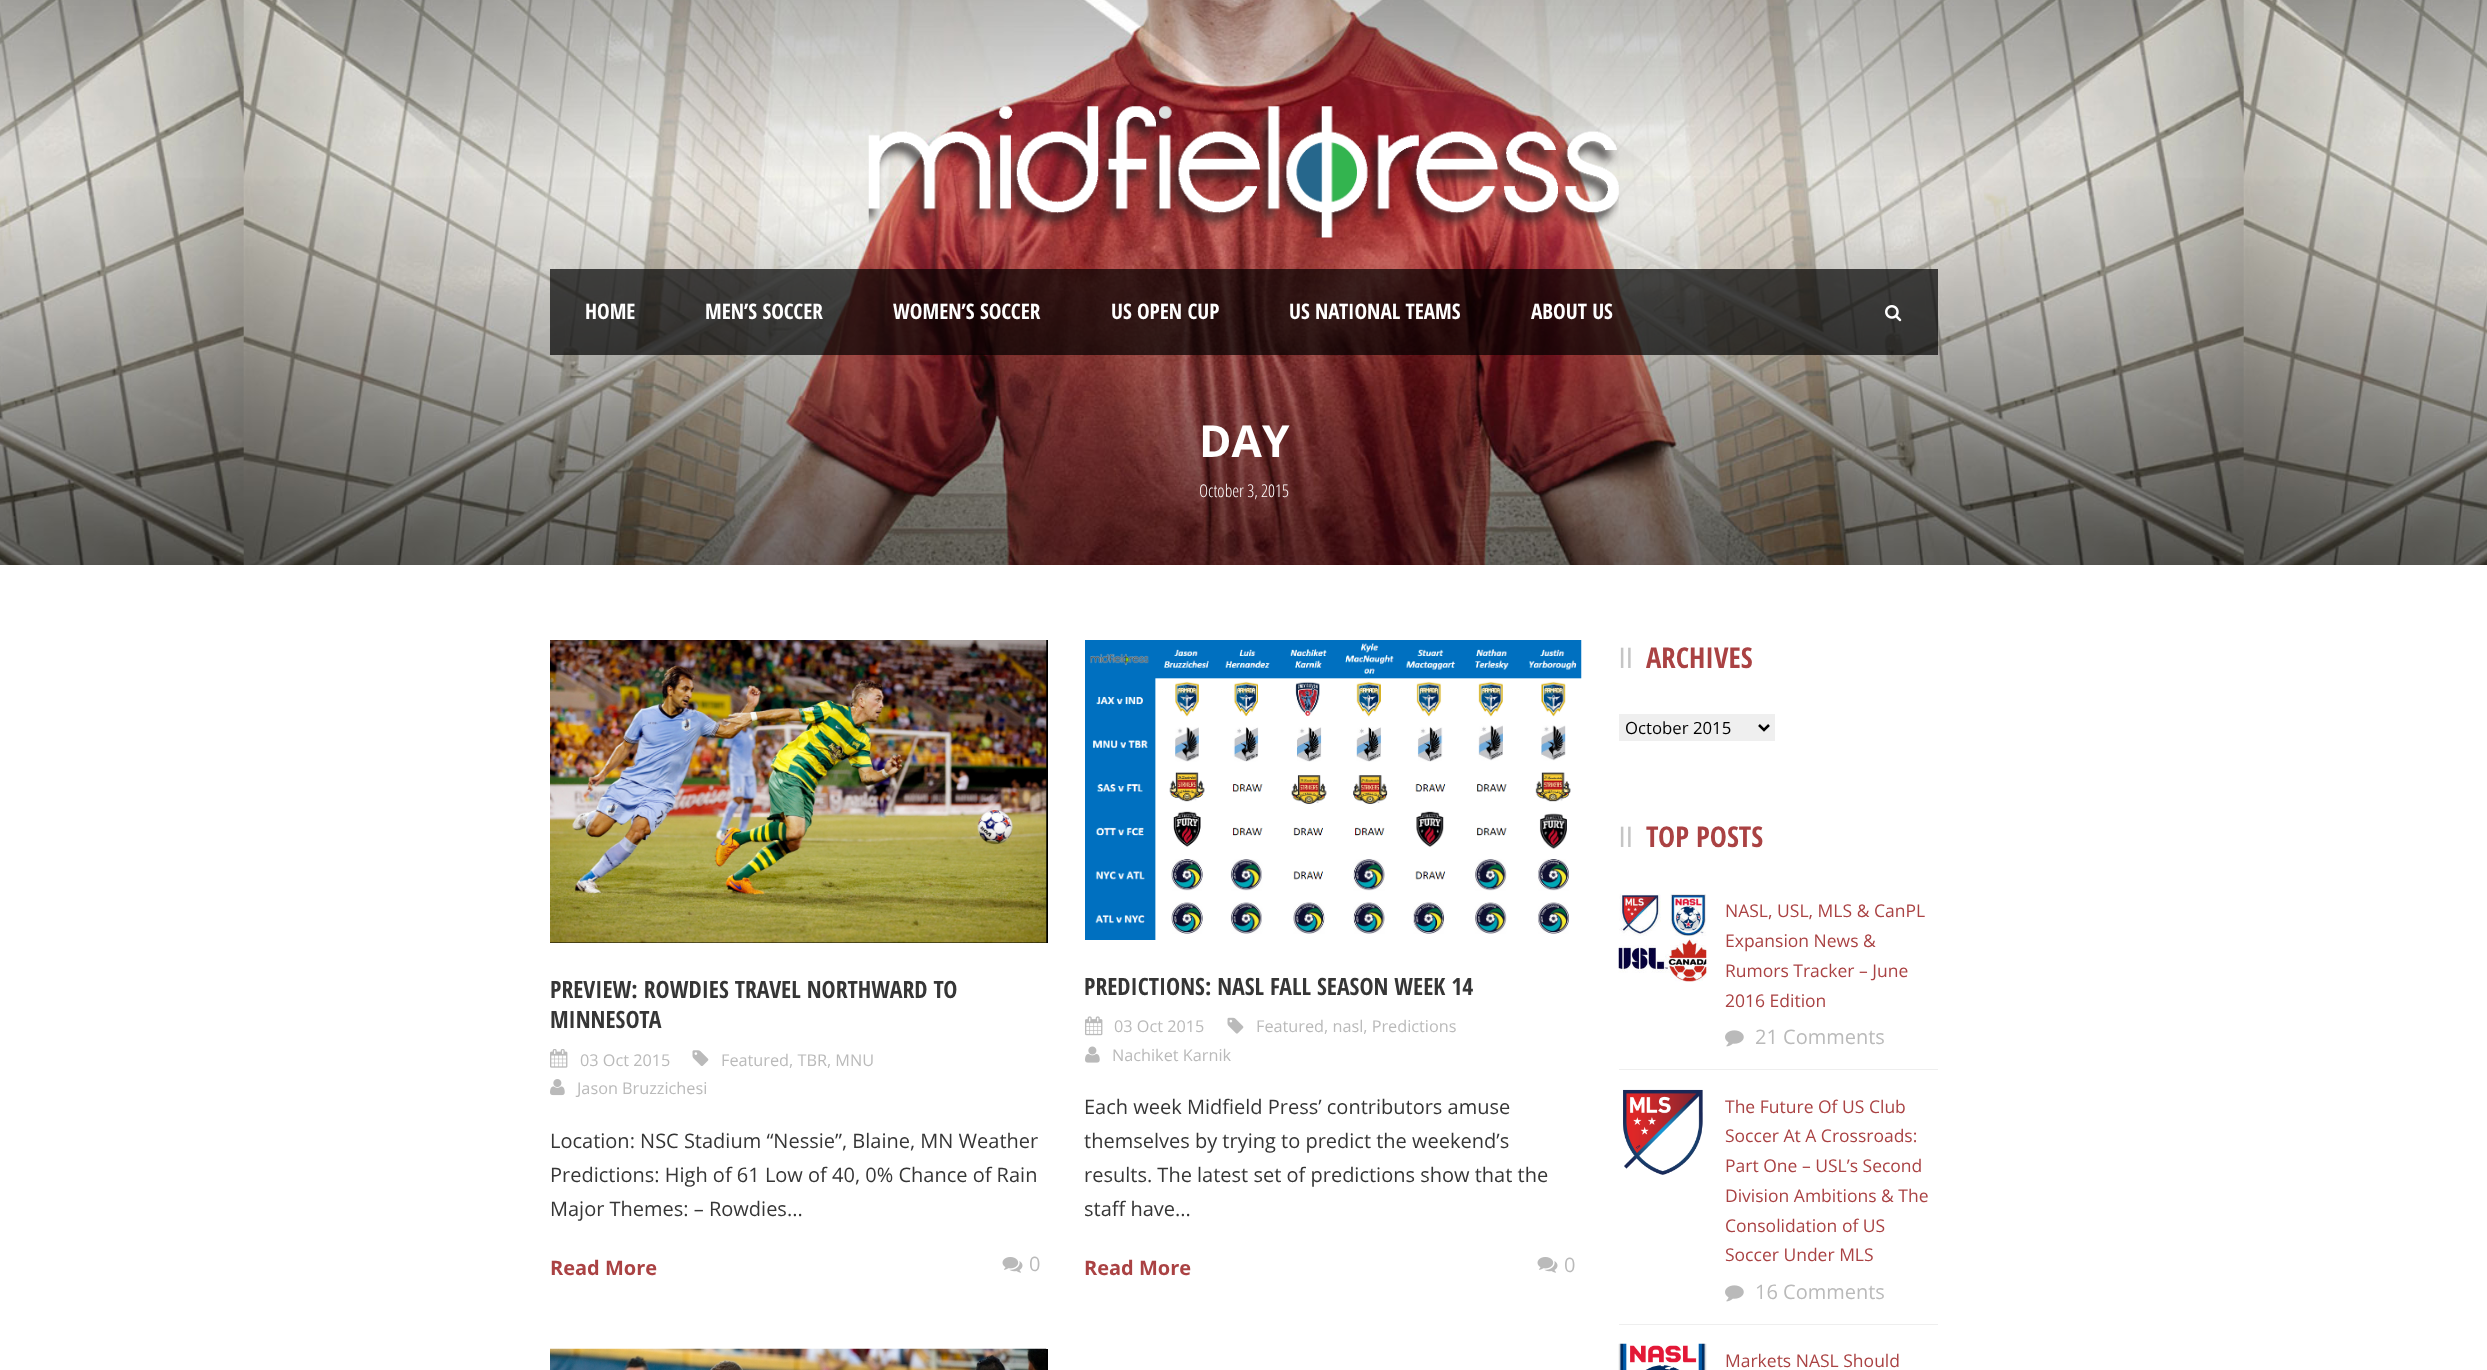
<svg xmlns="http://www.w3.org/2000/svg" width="2487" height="1370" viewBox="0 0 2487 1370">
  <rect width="100%" height="100%" fill="#ffffff"/>
  <image x="0" y="0" width="2487" height="565" href="img1.png"/>
  <image x="868" y="106" width="751" height="132" href="img2.png"/>
  <rect x="550" y="269" width="1388" height="86" fill="#000000" fill-opacity="0.7"/>
  <text x="585" y="319" font-family="Open Sans Condensed" font-size="21.25" font-weight="bold" fill="#ffffff">HOME</text>
  <text x="705" y="319" font-family="Open Sans Condensed" font-size="21.25" font-weight="bold" fill="#ffffff">MEN’S SOCCER</text>
  <text x="893" y="319" font-family="Open Sans Condensed" font-size="21.25" font-weight="bold" fill="#ffffff">WOMEN’S SOCCER</text>
  <text x="1111" y="319" font-family="Open Sans Condensed" font-size="21.25" font-weight="bold" fill="#ffffff">US OPEN CUP</text>
  <text x="1289" y="319" font-family="Open Sans Condensed" font-size="21.25" font-weight="bold" fill="#ffffff">US NATIONAL TEAMS</text>
  <text x="1531" y="319" font-family="Open Sans Condensed" font-size="21.25" font-weight="bold" fill="#ffffff">ABOUT US</text>
  <image x="1885" y="305" width="17" height="17" href="img3.png"/>
  <text x="1199" y="457" font-family="Open Sans" font-size="44" font-weight="bold" fill="#ffffff">DAY</text>
  <text x="1199" y="497" font-family="Open Sans Condensed" font-size="17.5" font-weight="300" fill="#ffffff">October 3, 2015</text>
  <rect x="550" y="640" width="498" height="303" fill="#000000"/>
  <image x="550" y="640" width="497" height="303" href="img4.png"/>
  <text x="550" y="998" font-family="Open Sans Condensed" font-size="23.75" font-weight="bold" fill="#363636">PREVIEW: ROWDIES TRAVEL NORTHWARD TO</text>
  <text x="550" y="1028" font-family="Open Sans Condensed" font-size="23.75" font-weight="bold" fill="#363636">MINNESOTA</text>
  <image x="550" y="1049" width="18" height="19" href="img5.png"/>
  <text x="580" y="1066" font-family="Open Sans" font-size="16.25" fill="#bababa">03 Oct 2015</text>
  <image x="692" y="1050" width="17" height="16" href="img6.png"/>
  <text x="721" y="1066" font-family="Open Sans" font-size="16.25" fill="#bababa">Featured, TBR, MNU</text>
  <image x="550" y="1079" width="15" height="17" href="img7.png"/>
  <text x="577" y="1094" font-family="Open Sans" font-size="16.25" fill="#bababa">Jason Bruzzichesi</text>
  <text x="550" y="1148" font-family="Open Sans" font-size="20" fill="#363636">Location: NSC Stadium “Nessie”, Blaine, MN Weather</text>
  <text x="550" y="1182" font-family="Open Sans" font-size="20" fill="#363636">Predictions: High of 61 Low of 40, 0% Chance of Rain</text>
  <text x="550" y="1216" font-family="Open Sans" font-size="20" fill="#363636">Major Themes: – Rowdies...</text>
  <text x="550" y="1275" font-family="Open Sans" font-size="20" font-weight="bold" fill="#aa4243">Read More</text>
  <image x="1002" y="1257" width="21" height="16" href="img8.png"/>
  <text x="1029" y="1271" font-family="Open Sans" font-size="20" fill="#bababa">0</text>
  <image x="1085" y="640" width="497" height="300" href="img9.png"/>
  <text x="1084" y="995" font-family="Open Sans Condensed" font-size="23.75" font-weight="bold" fill="#363636">PREDICTIONS: NASL FALL SEASON WEEK 14</text>
  <image x="1085" y="1016" width="18" height="20" href="img10.png"/>
  <text x="1114" y="1032" font-family="Open Sans" font-size="16.25" fill="#bababa">03 Oct 2015</text>
  <image x="1227" y="1017" width="17" height="17" href="img11.png"/>
  <text x="1256" y="1032" font-family="Open Sans" font-size="16.25" fill="#bababa">Featured, nasl, Predictions</text>
  <image x="1085" y="1046" width="15" height="17" href="img12.png"/>
  <text x="1112" y="1061" font-family="Open Sans" font-size="16.25" fill="#bababa">Nachiket Karnik</text>
  <text x="1084" y="1114" font-family="Open Sans" font-size="20" fill="#363636">Each week Midfield Press’ contributors amuse</text>
  <text x="1084" y="1148" font-family="Open Sans" font-size="20" fill="#363636">themselves by trying to predict the weekend’s</text>
  <text x="1084" y="1182" font-family="Open Sans" font-size="20" fill="#363636">results. The latest set of predictions show that the</text>
  <text x="1084" y="1216" font-family="Open Sans" font-size="20" fill="#363636">staff have...</text>
  <text x="1084" y="1275" font-family="Open Sans" font-size="20" font-weight="bold" fill="#aa4243">Read More</text>
  <image x="1537" y="1257" width="21" height="16" href="img8.png"/>
  <text x="1564" y="1272" font-family="Open Sans" font-size="20" fill="#bababa">0</text>
  <rect x="1046" y="1349" width="2" height="21" fill="#000000"/>
  <image x="550" y="1348" width="497" height="22" href="img13.png"/>
  <text x="1619" y="668" font-family="Liberation Sans" font-size="28" letter-spacing="1" fill="#c5c5c5">ll</text>
  <text x="1646" y="668" font-family="Open Sans Condensed" font-size="28.75" font-weight="bold" fill="#aa4243">ARCHIVES</text>
  <rect x="1619" y="714" width="156" height="27" fill="#efefef"/>
  <path d="M1759 725L1764 730L1769 725" fill="none" stroke="#000000" stroke-width="2.5"/>
  <text x="1625" y="734" font-family="Open Sans" font-size="16.75" fill="#000000">October 2015</text>
  <text x="1619" y="847" font-family="Liberation Sans" font-size="28" letter-spacing="1" fill="#c5c5c5">ll</text>
  <text x="1646" y="847" font-family="Open Sans Condensed" font-size="28.75" font-weight="bold" fill="#aa4243">TOP POSTS</text>
  <rect x="1619" y="1069" width="319" height="1" fill="#eeeeee"/>
  <image x="1618" y="893" width="89" height="89" href="img14.png"/>
  <text x="1725" y="917" font-family="Open Sans" font-size="17.5" fill="#aa4243">NASL, USL, MLS &amp; CanPL</text>
  <text x="1725" y="947" font-family="Open Sans" font-size="17.5" fill="#aa4243">Expansion News &amp;</text>
  <text x="1725" y="977" font-family="Open Sans" font-size="17.5" fill="#aa4243">Rumors Tracker – June</text>
  <text x="1725" y="1007" font-family="Open Sans" font-size="17.5" fill="#aa4243">2016 Edition</text>
  <image x="1725" y="1030" width="19" height="17" href="img15.png"/>
  <text x="1755" y="1044" font-family="Open Sans" font-size="20" fill="#bababa">21 Comments</text>
  <rect x="1619" y="1324" width="319" height="1" fill="#eeeeee"/>
  <image x="1623" y="1089" width="80" height="86" href="img16.png"/>
  <text x="1725" y="1113" font-family="Open Sans" font-size="17.5" fill="#aa4243">The Future Of US Club</text>
  <text x="1725" y="1142" font-family="Open Sans" font-size="17.5" fill="#aa4243">Soccer At A Crossroads:</text>
  <text x="1725" y="1172" font-family="Open Sans" font-size="17.5" fill="#aa4243">Part One – USL’s Second</text>
  <text x="1725" y="1202" font-family="Open Sans" font-size="17.5" fill="#aa4243">Division Ambitions &amp; The</text>
  <text x="1725" y="1232" font-family="Open Sans" font-size="17.5" fill="#aa4243">Consolidation of US</text>
  <text x="1725" y="1261" font-family="Open Sans" font-size="17.5" fill="#aa4243">Soccer Under MLS</text>
  <image x="1725" y="1285" width="19" height="17" href="img15.png"/>
  <text x="1755" y="1299" font-family="Open Sans" font-size="20" fill="#bababa">16 Comments</text>
  <image x="1618" y="1343" width="89" height="27" href="img17.png"/>
  <text x="1725" y="1367" font-family="Open Sans" font-size="17.5" fill="#aa4243">Markets NASL Should</text>
</svg>
